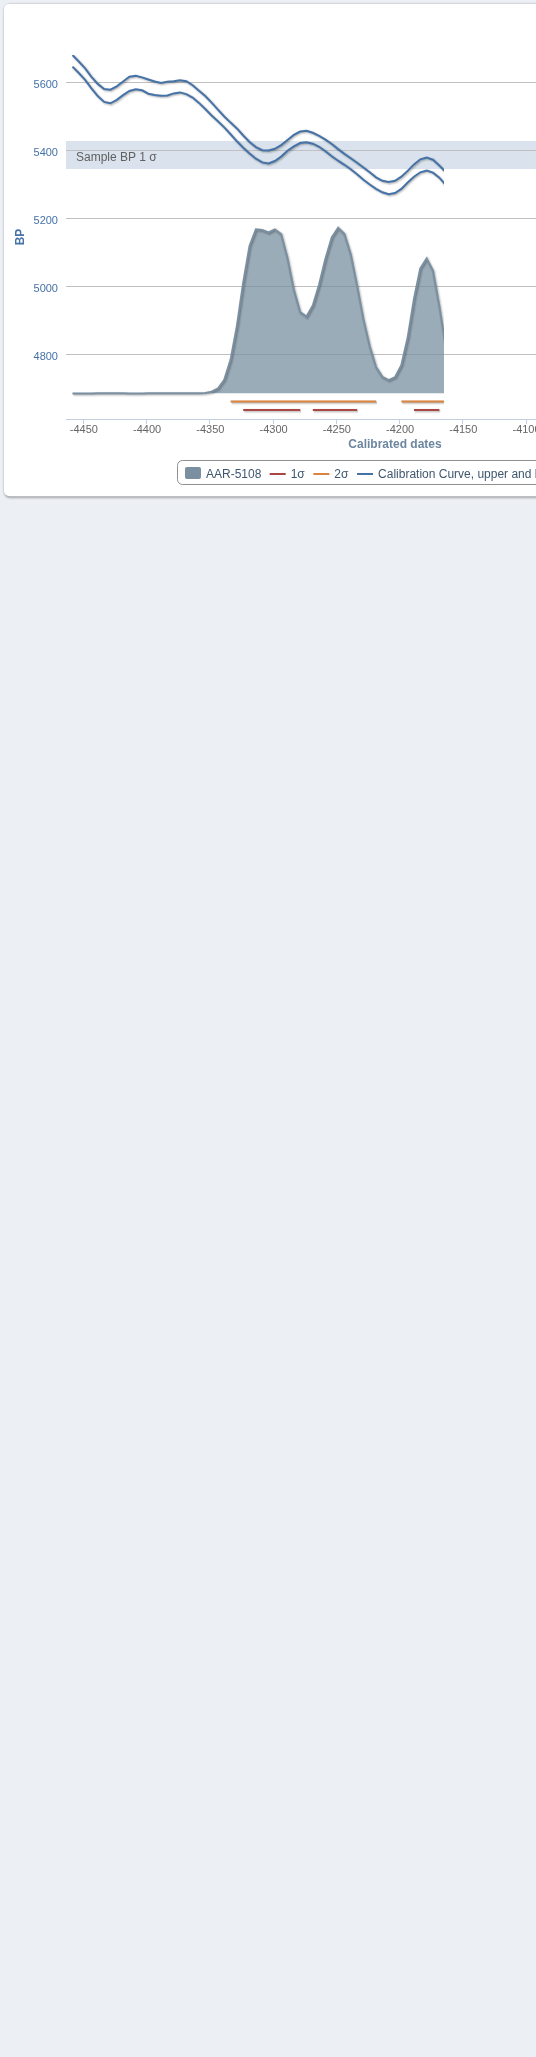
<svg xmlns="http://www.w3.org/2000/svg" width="536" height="2057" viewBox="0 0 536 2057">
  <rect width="100%" height="100%" fill="#eceff3"/>
  <image x="2" y="2" width="534" height="498" href="img1.png"/>
</svg>
